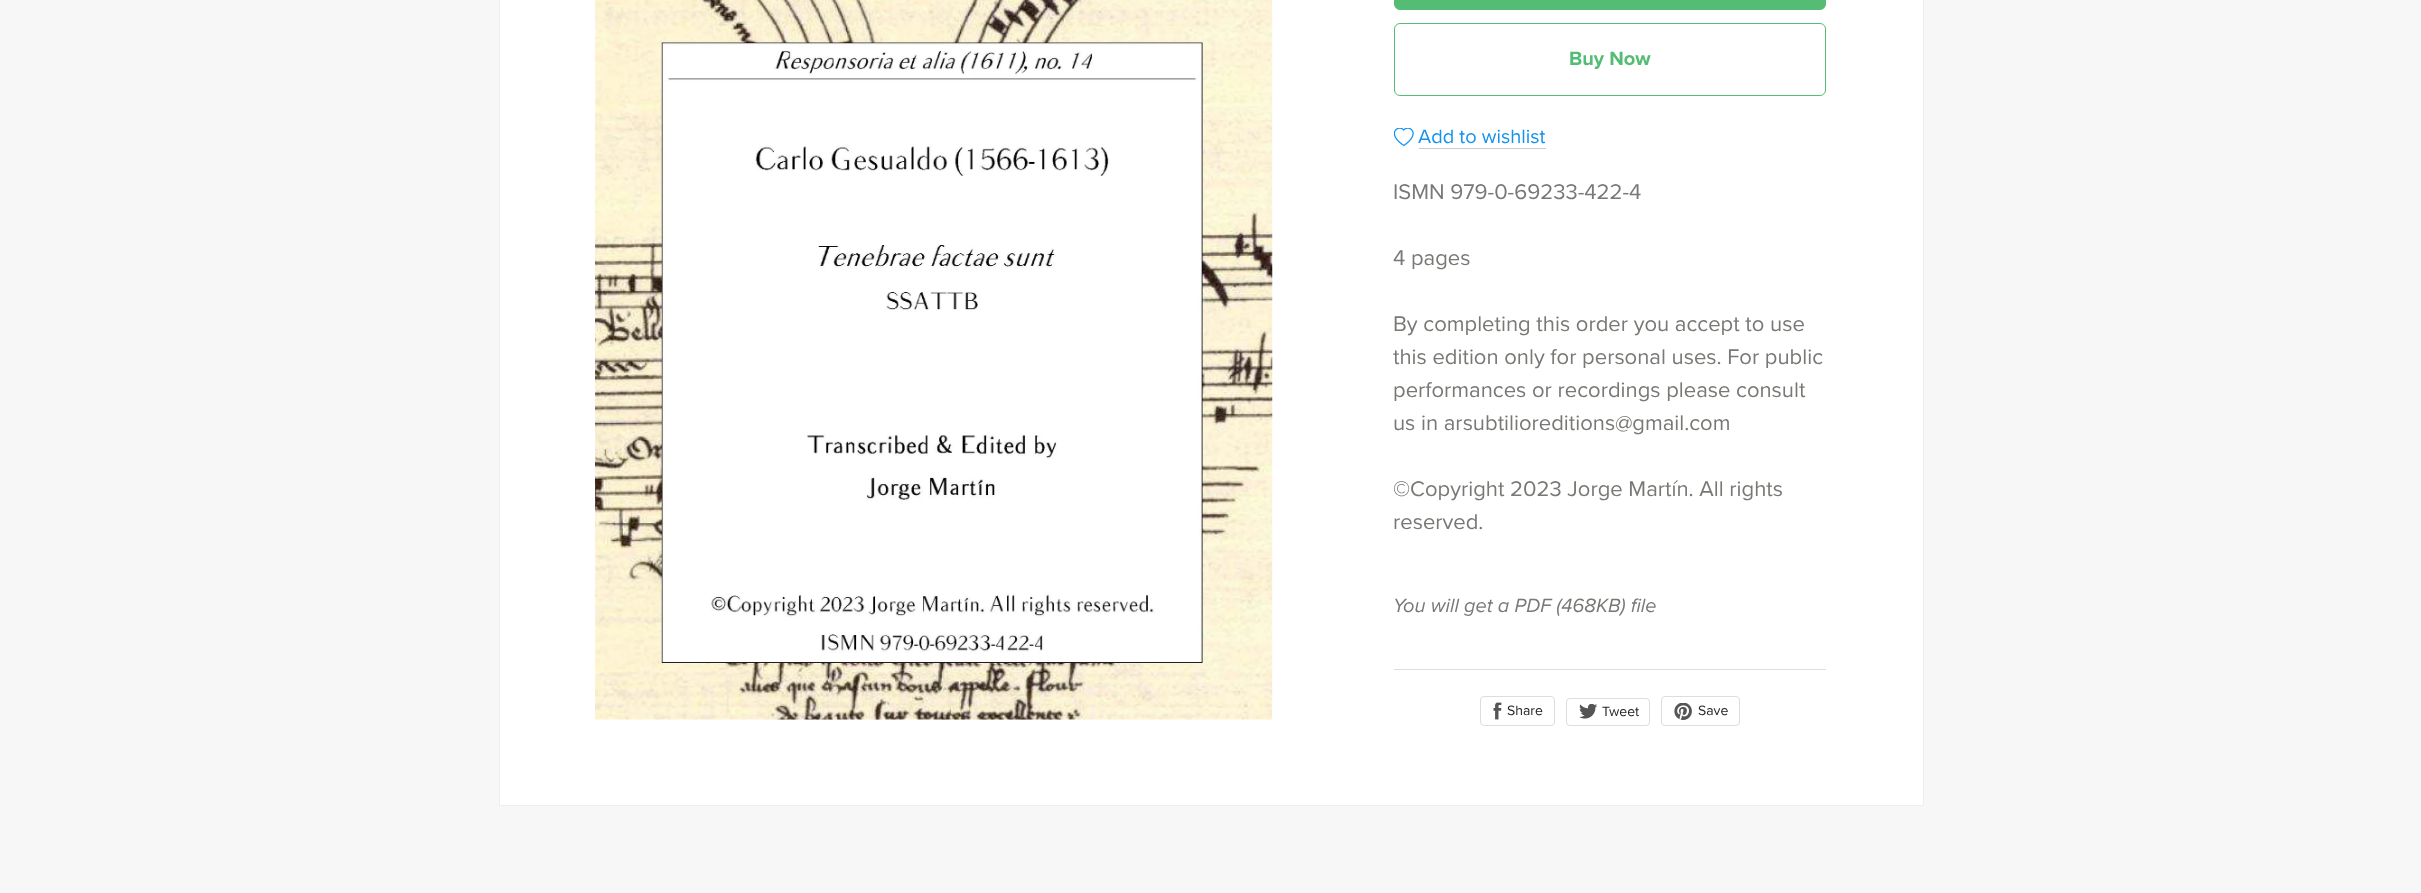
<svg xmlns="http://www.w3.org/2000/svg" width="2421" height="893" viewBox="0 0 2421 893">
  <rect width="100%" height="100%" fill="#f7f7f7"/>
  <rect x="499.5" y="-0.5" width="1424" height="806" fill="#ffffff" stroke="#eeeeee"/>
  <image x="595" y="0" width="678" height="720" href="img1.png"/>
  <rect x="1394.5" y="-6.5" width="431" height="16" rx="5.5" fill="#55bc75" stroke="#55bc75"/>
  <rect x="1394.5" y="23.5" width="431" height="72" rx="5.5" fill="none" stroke="#55bc75"/>
  <text x="1569" y="65" font-family="Proxima Nova" font-size="20" font-weight="bold" fill="#55bc75">Buy Now</text>
  <image x="1394" y="128" width="20" height="19" href="img2.png"/>
  <text x="1418" y="143" font-family="Proxima Nova" font-size="20" fill="#1292ee">Add to wishlist</text>
  <rect x="1419" y="148" width="127" height="1" fill="#cccccc"/>
  <text x="1393" y="199" font-family="Proxima Nova" font-size="22" fill="#797875">ISMN 979-0-69233-422-4</text>
  <text x="1393" y="265" font-family="Proxima Nova" font-size="22" fill="#797875">4 pages</text>
  <text x="1393" y="331" font-family="Proxima Nova" font-size="22" fill="#797875">By completing this order you accept to use</text>
  <text x="1393" y="364" font-family="Proxima Nova" font-size="22" fill="#797875">this edition only for personal uses. For public</text>
  <text x="1393" y="397" font-family="Proxima Nova" font-size="22" fill="#797875">performances or recordings please consult</text>
  <text x="1393" y="430" font-family="Proxima Nova" font-size="22" fill="#797875">us in arsubtilioreditions@gmail.com</text>
  <text x="1393" y="496" font-family="Proxima Nova" font-size="22" fill="#797875">©Copyright 2023 Jorge Martín. All rights</text>
  <text x="1393" y="529" font-family="Proxima Nova" font-size="22" fill="#797875">reserved.</text>
  <text x="1393" y="612" font-family="Proxima Nova" font-size="20" font-style="italic" fill="#797875">You will get a PDF (468KB) file</text>
  <rect x="1394" y="669" width="432" height="1" fill="#dddddd"/>
  <rect x="1480.5" y="696.5" width="74" height="29" rx="3.5" fill="none" stroke="#dddddd"/>
  <image x="1493" y="702" width="9" height="18" href="img3.png"/>
  <text x="1507" y="715" font-family="Proxima Nova" font-size="14" fill="#222222">Share</text>
  <rect x="1566.5" y="698.5" width="83" height="27" rx="3.5" fill="none" stroke="#dddddd"/>
  <image x="1579" y="704" width="19" height="15" href="img4.png"/>
  <text x="1602" y="716" font-family="Proxima Nova" font-size="14" fill="#222222">Tweet</text>
  <rect x="1661.5" y="696.5" width="78" height="29" rx="3.5" fill="none" stroke="#dddddd"/>
  <image x="1674" y="703" width="18" height="17" href="img5.png"/>
  <text x="1698" y="715" font-family="Proxima Nova" font-size="14" fill="#222222">Save</text>
</svg>
